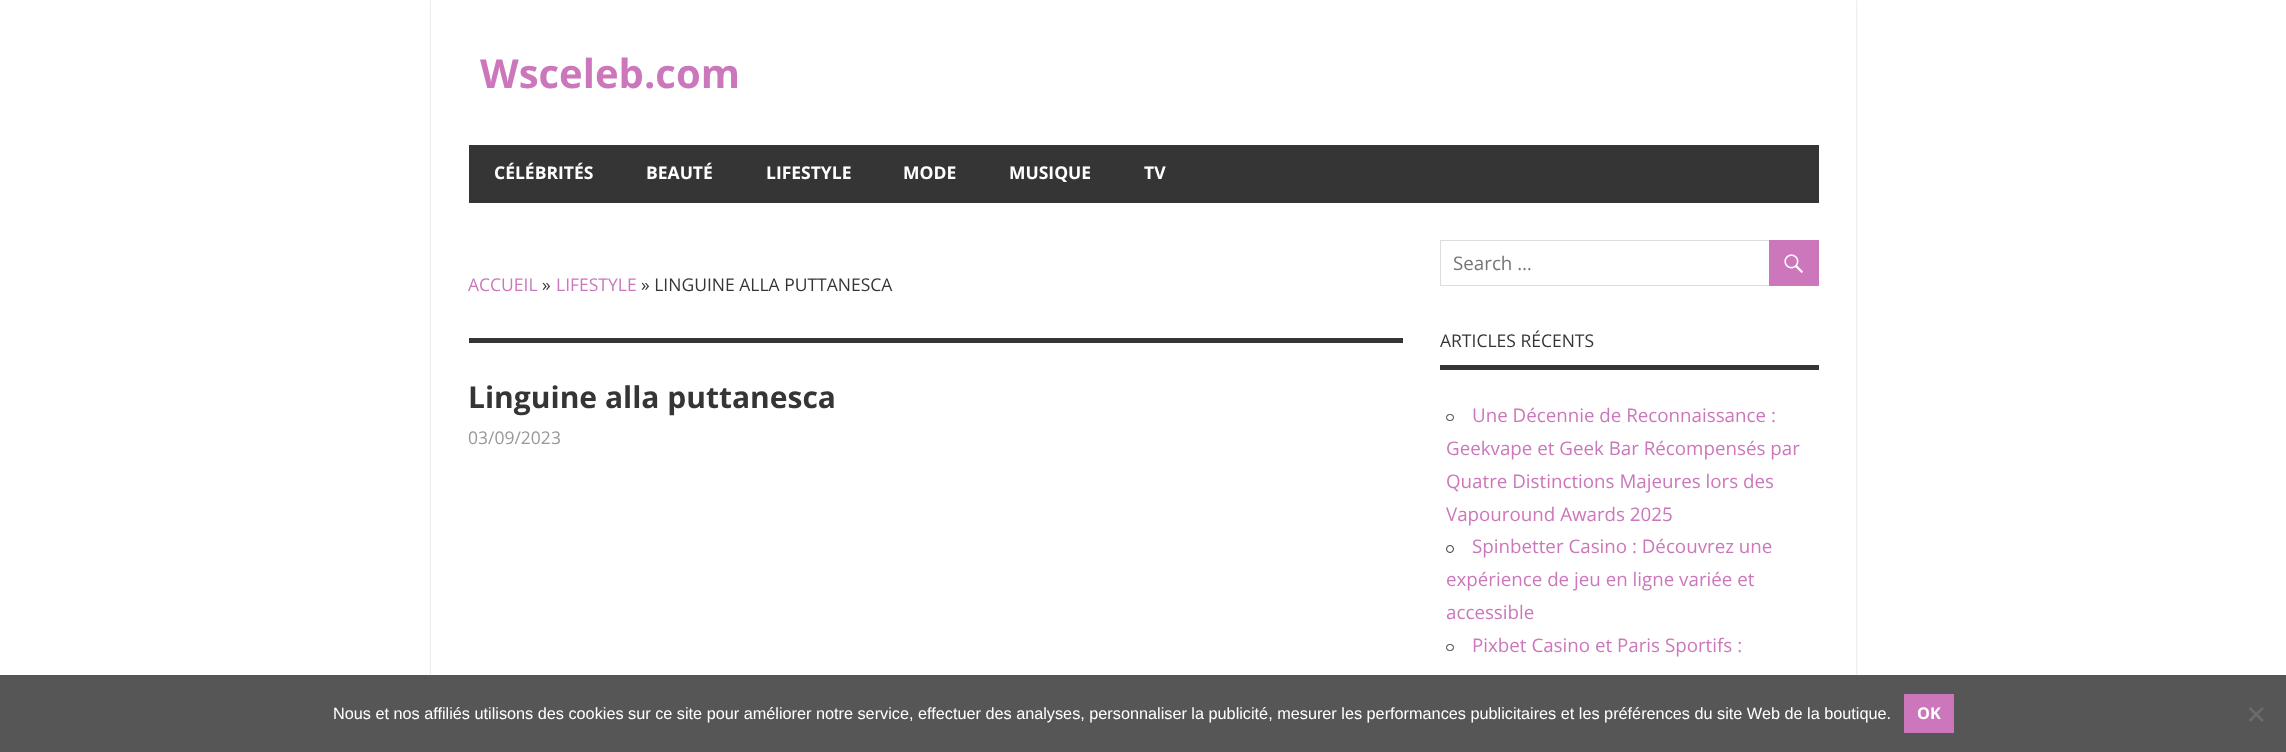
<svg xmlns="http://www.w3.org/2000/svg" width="2286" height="752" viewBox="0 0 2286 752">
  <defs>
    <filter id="blur1" x="-50%" y="-200%" width="200%" height="500%"><feGaussianBlur stdDeviation="1"/></filter>
  </defs>
  <rect width="100%" height="100%" fill="#ffffff"/>
  <rect x="431" y="0" width="1425" height="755" fill="#cccccc" filter="url(#blur1)"/>
  <rect x="431" y="0" width="1425" height="675" fill="#ffffff"/>
  <text x="480" y="88" font-family="Open Sans" font-size="40" font-weight="bold" fill="#cc77bb">Wsceleb.com</text>
  <rect x="469" y="145" width="1350" height="58" fill="#353535"/>
  <text x="494" y="179" font-family="Open Sans" font-size="17.5" font-weight="bold" fill="#ffffff">CÉLÉBRITÉS</text>
  <text x="646" y="179" font-family="Open Sans" font-size="17.5" font-weight="bold" fill="#ffffff">BEAUTÉ</text>
  <text x="766" y="179" font-family="Open Sans" font-size="17.5" font-weight="bold" fill="#ffffff">LIFESTYLE</text>
  <text x="903" y="179" font-family="Open Sans" font-size="17.5" font-weight="bold" fill="#ffffff">MODE</text>
  <text x="1009" y="179" font-family="Open Sans" font-size="17.5" font-weight="bold" fill="#ffffff">MUSIQUE</text>
  <text x="1144" y="179" font-family="Open Sans" font-size="17.5" font-weight="bold" fill="#ffffff">TV</text>
  <rect x="469" y="338" width="934" height="5" fill="#353535"/>
  <text x="468" y="291" font-family="Open Sans" font-size="17.5" fill="#cc77bb">ACCUEIL</text>
  <text x="542" y="291" font-family="Open Sans" font-size="17.5" fill="#353535">»</text>
  <text x="556" y="291" font-family="Open Sans" font-size="17.5" fill="#cc77bb">LIFESTYLE</text>
  <text x="641" y="291" font-family="Open Sans" font-size="17.5" fill="#353535">» LINGUINE ALLA PUTTANESCA</text>
  <text x="468" y="408" font-family="Open Sans" font-size="30" font-weight="bold" fill="#353535">Linguine alla puttanesca</text>
  <text x="468" y="444" font-family="Open Sans" font-size="17.5" fill="#999999">03/09/2023</text>
  <rect x="1440.5" y="240.5" width="378" height="45" fill="none" stroke="#dddddd"/>
  <text x="1453" y="270" font-family="Open Sans" font-size="18.75" fill="#757575">Search …</text>
  <rect x="1769" y="240" width="50" height="46" fill="#cc77bb"/>
  <image x="1784" y="254" width="19" height="19" href="img1.png"/>
  <rect x="1440" y="365" width="379" height="5" fill="#353535"/>
  <text x="1440" y="347" font-family="Open Sans" font-size="17.5" fill="#353535">ARTICLES RÉCENTS</text>
  <rect x="1446.5" y="414.5" width="7" height="6" rx="3" fill="none" stroke="#333333"/>
  <text x="1472" y="422" font-family="Open Sans" font-size="18.75" fill="#cc77bb">Une Décennie de Reconnaissance :</text>
  <text x="1446" y="455" font-family="Open Sans" font-size="18.75" fill="#cc77bb">Geekvape et Geek Bar Récompensés par</text>
  <text x="1446" y="488" font-family="Open Sans" font-size="18.75" fill="#cc77bb">Quatre Distinctions Majeures lors des</text>
  <text x="1446" y="521" font-family="Open Sans" font-size="18.75" fill="#cc77bb">Vapouround Awards 2025</text>
  <circle cx="1450" cy="549" r="3.5" fill="none" stroke="#333333"/>
  <text x="1472" y="553" font-family="Open Sans" font-size="18.75" fill="#cc77bb">Spinbetter Casino : Découvrez une</text>
  <text x="1446" y="586" font-family="Open Sans" font-size="18.75" fill="#cc77bb">expérience de jeu en ligne variée et</text>
  <text x="1446" y="619" font-family="Open Sans" font-size="18.75" fill="#cc77bb">accessible</text>
  <rect x="1446.5" y="644.5" width="7" height="6" rx="3" fill="none" stroke="#333333"/>
  <text x="1472" y="652" font-family="Open Sans" font-size="18.75" fill="#cc77bb">Pixbet Casino et Paris Sportifs :</text>
  <rect x="0" y="675" width="2286" height="77" fill="#565656"/>
  <text x="333" y="719" font-family="Liberation Sans" font-size="16.25" fill="#ffffff">Nous et nos affiliés utilisons des cookies sur ce site pour améliorer notre service, effectuer des analyses, personnaliser la publicité, mesurer les performances publicitaires et les préférences du site Web de la boutique.</text>
  <rect x="1904" y="694" width="50" height="39" fill="#cc77bb"/>
  <text x="1917" y="719" font-family="Open Sans" font-size="16.25" font-weight="bold" fill="#ffffff">OK</text>
  <path d="M2262 707L2264 708.5L2250.5 722L2248.5 720Z" fill="#6b6b6b"/>
  <path d="M2248.5 708.5L2250.5 707L2264 720L2262 722Z" fill="#6b6b6b"/>
</svg>
